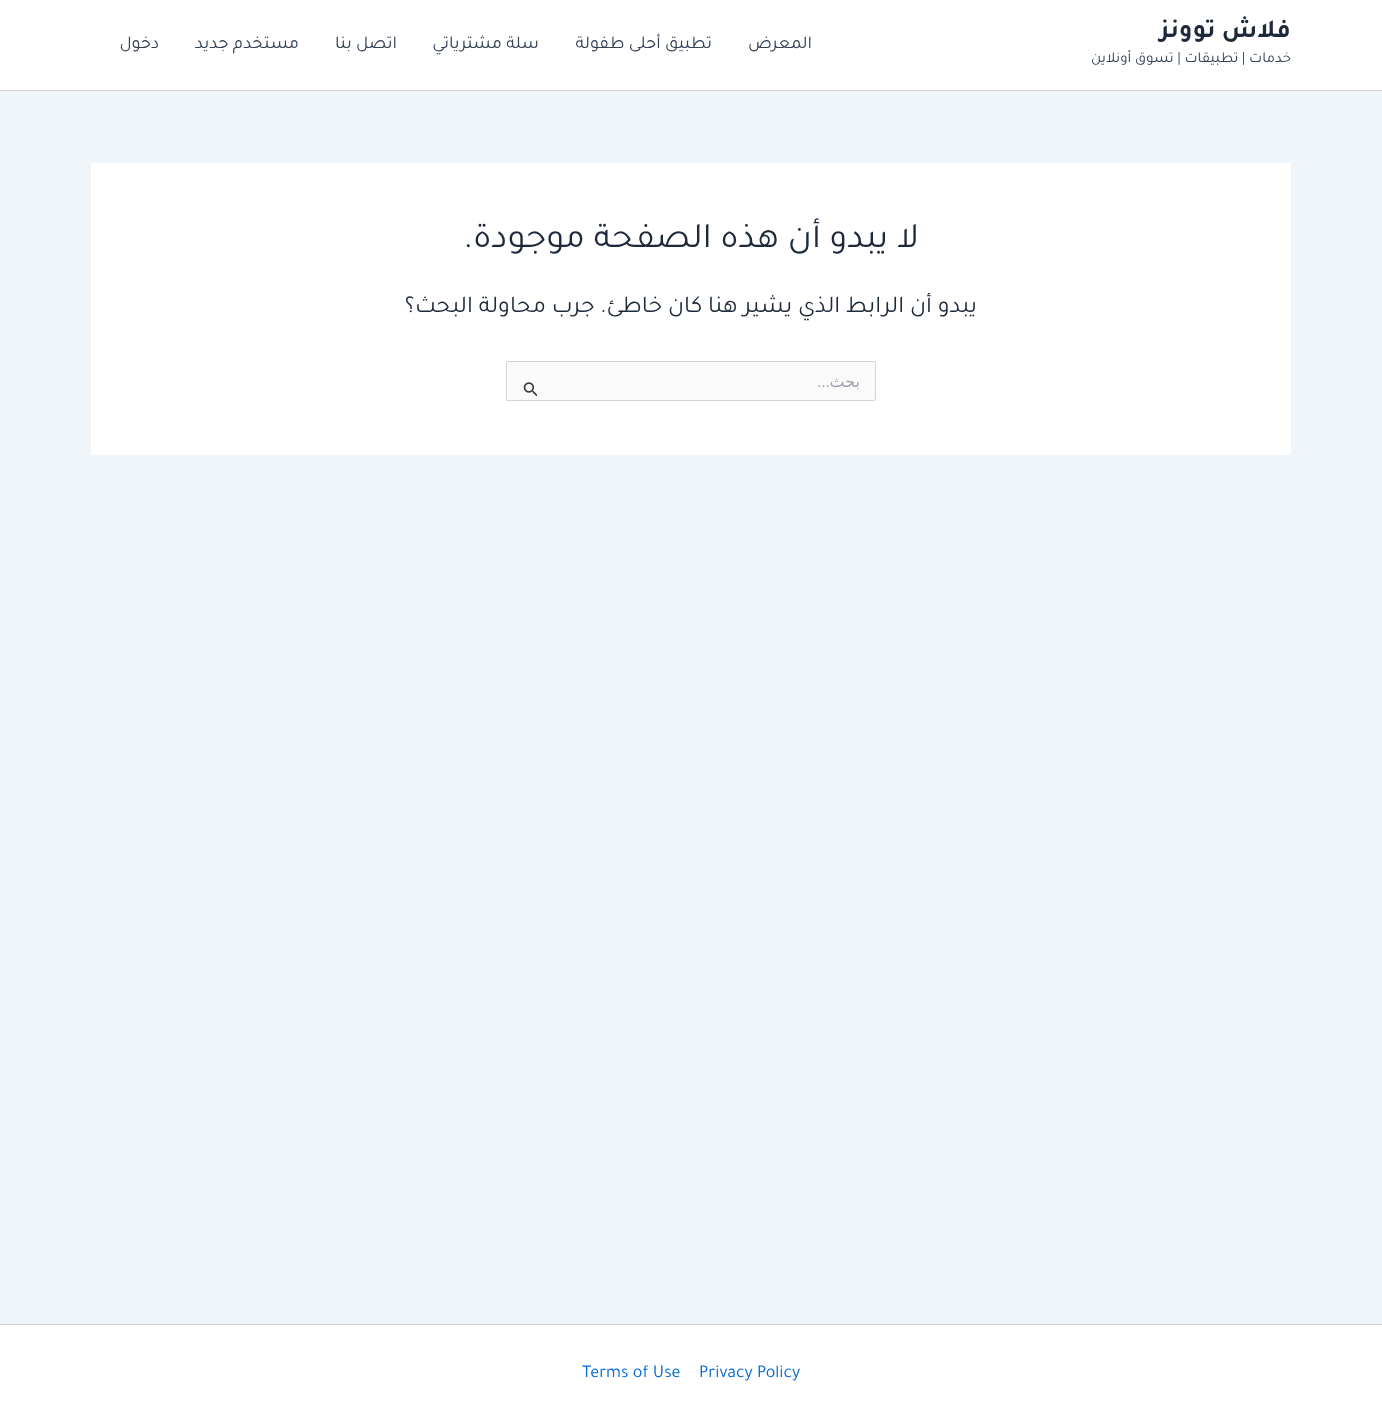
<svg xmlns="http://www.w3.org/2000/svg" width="1382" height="1425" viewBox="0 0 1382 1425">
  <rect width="100%" height="100%" fill="#f0f5fa"/>
  <rect x="0" y="0" width="1382" height="90" fill="#ffffff"/>
  <rect x="0" y="90" width="1382" height="1" fill="#d1d5db"/>
  <text x="1291" y="37" font-family="Tajawal" font-size="26" font-weight="bold" direction="rtl" fill="#1e293b">فلاش توونز</text>
  <text x="1291" y="62" font-family="Tajawal" font-size="15" direction="rtl" fill="#334155">خدمات | تطبيقات | تسوق أونلاين</text>
  <text x="812" y="48" font-family="Tajawal" font-size="18" direction="rtl" fill="#334155">المعرض</text>
  <text x="712" y="48" font-family="Tajawal" font-size="18" direction="rtl" fill="#334155">تطبيق أحلى طفولة</text>
  <text x="539" y="48" font-family="Tajawal" font-size="18" direction="rtl" fill="#334155">سلة مشترياتي</text>
  <text x="397" y="48" font-family="Tajawal" font-size="18" direction="rtl" fill="#334155">اتصل بنا</text>
  <text x="299" y="48" font-family="Tajawal" font-size="18" direction="rtl" fill="#334155">مستخدم جديد</text>
  <text x="159" y="48" font-family="Tajawal" font-size="18" direction="rtl" fill="#334155">دخول</text>
  <rect x="91" y="163" width="1200" height="292" fill="#ffffff"/>
  <text x="919" y="247" font-family="Tajawal" font-size="36" direction="rtl" fill="#1e293b">لا يبدو أن هذه الصفحة موجودة.</text>
  <text x="977" y="312" font-family="Tajawal" font-size="24" direction="rtl" fill="#1e293b">يبدو أن الرابط الذي يشير هنا كان خاطئ. جرب محاولة البحث؟</text>
  <rect x="506.5" y="361.5" width="369" height="39" rx="1.5" fill="#fafafa" stroke="#d1d5db"/>
  <text x="860" y="387" font-family="DejaVu Sans" font-size="16" direction="rtl" fill="#9ca3af">بحث</text>
  <text x="830" y="387" font-family="Roboto" font-size="16" direction="rtl" fill="#9ca3af">...</text>
  <image x="523" y="382" width="14" height="15" href="img1.png"/>
  <rect x="0" y="1325" width="1382" height="100" fill="#ffffff"/>
  <rect x="0" y="1324" width="1382" height="1" fill="#d1d5db"/>
  <text x="699" y="1377" font-family="Tajawal" font-size="18" fill="#046bd2">Privacy Policy</text>
  <text x="582" y="1377" font-family="Tajawal" font-size="18" fill="#046bd2">Terms of Use</text>
</svg>
